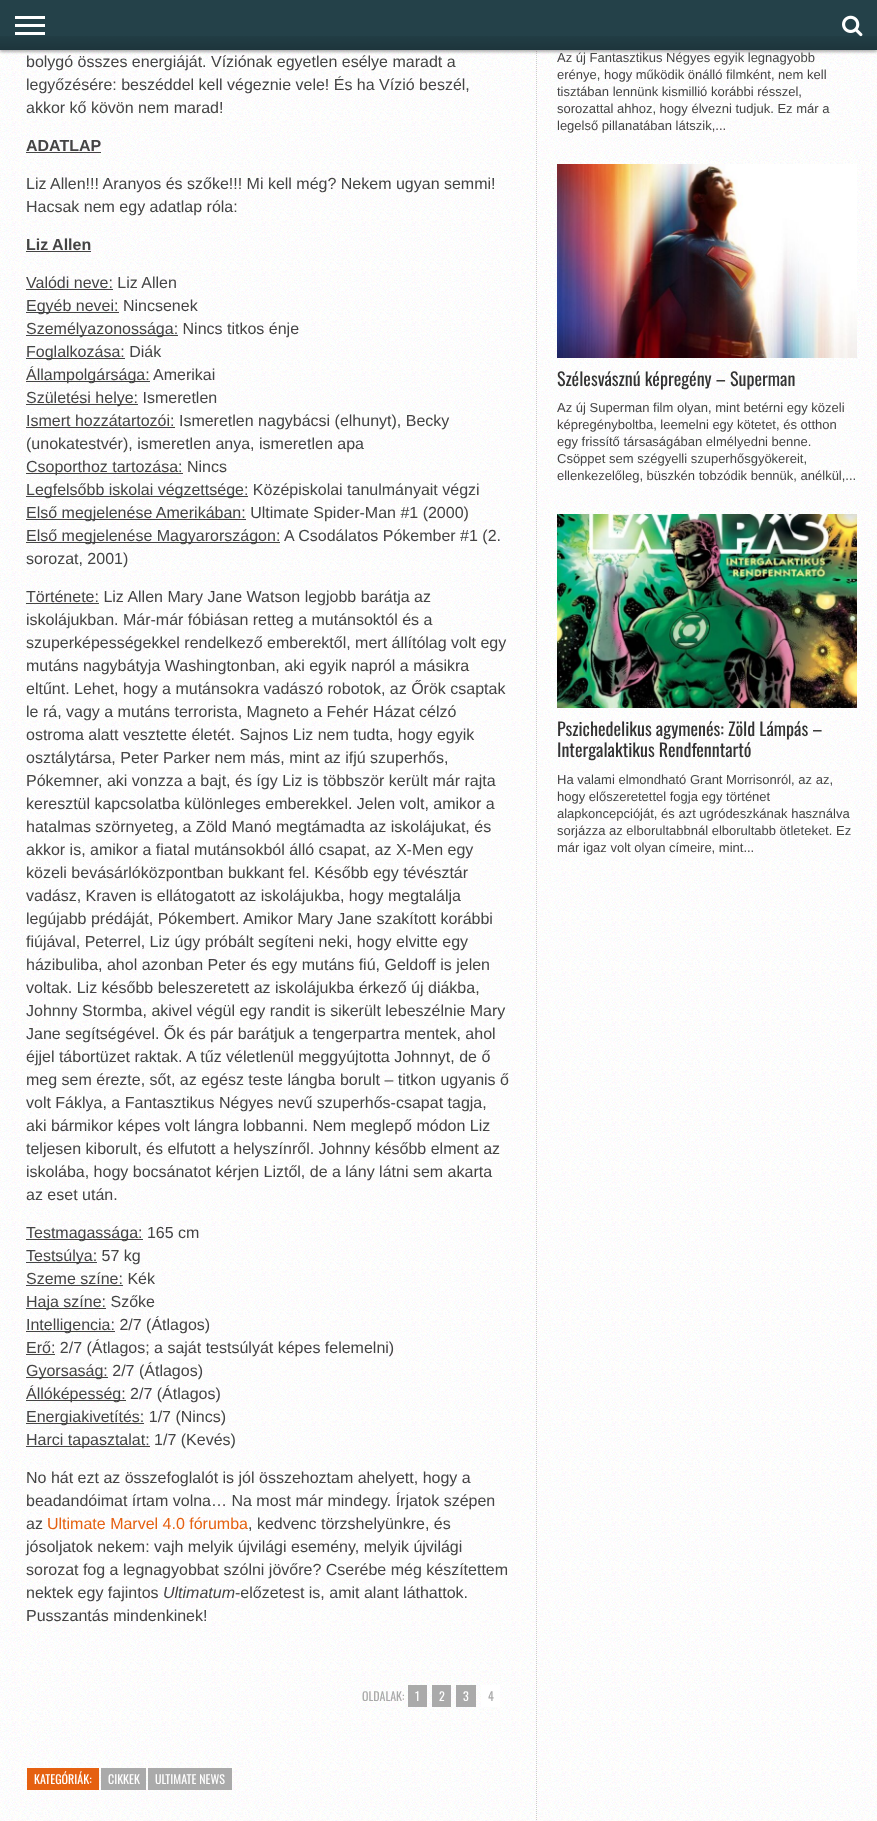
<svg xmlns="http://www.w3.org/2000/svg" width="877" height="1821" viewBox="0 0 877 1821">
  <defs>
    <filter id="blur1" x="-50%" y="-200%" width="200%" height="500%"><feGaussianBlur stdDeviation="1.5"/></filter>
  </defs>
  <rect width="100%" height="100%" fill="#ffffff"/>
  <image x="0" y="50" width="877" height="1771" href="img3.png"/>
  <path d="M536.5-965V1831" fill="none" stroke="#cccccc" stroke-dasharray="1 1"/>
  <rect x="0" y="2" width="877" height="50" fill="#000000" fill-opacity="0.3" filter="url(#blur1)"/>
  <rect x="0" y="0" width="877" height="50" fill="#244149"/>
  <image x="0" y="36" width="877" height="14" href="img1.png"/>
  <rect x="15" y="16" width="30" height="3" fill="#ffffff"/>
  <rect x="15" y="24" width="30" height="3" fill="#ffffff"/>
  <rect x="15" y="32" width="30" height="3" fill="#ffffff"/>
  <image x="842" y="15" width="21" height="22" href="img2.png"/>
  <text x="26" y="67" font-family="Liberation Sans" font-size="16" fill="#444444">bolygó összes energiáját. Víziónak egyetlen esélye maradt a</text>
  <text x="26" y="90" font-family="Liberation Sans" font-size="16" fill="#444444">legyőzésére: beszéddel kell végeznie vele! És ha Vízió beszél,</text>
  <text x="26" y="113" font-family="Liberation Sans" font-size="16" fill="#444444">akkor kő kövön nem marad!</text>
  <text x="26" y="151" font-family="Liberation Sans" font-size="16" font-weight="bold" fill="#444444">ADATLAP</text>
  <rect x="26" y="152" width="75" height="1" fill="#444444"/>
  <text x="26" y="189" font-family="Liberation Sans" font-size="16" fill="#444444">Liz Allen!!! Aranyos és szőke!!! Mi kell még? Nekem ugyan semmi!</text>
  <text x="26" y="212" font-family="Liberation Sans" font-size="16" fill="#444444">Hacsak nem egy adatlap róla:</text>
  <text x="26" y="250" font-family="Liberation Sans" font-size="16" font-weight="bold" fill="#444444">Liz Allen</text>
  <rect x="26" y="251" width="65" height="1" fill="#444444"/>
  <text x="26" y="288" font-family="Liberation Sans" font-size="16" fill="#444444">Valódi neve: Liz Allen</text>
  <rect x="26" y="289" width="87" height="1" fill="#444444"/>
  <rect x="26" y="312" width="93" height="1" fill="#444444"/>
  <text x="26" y="311" font-family="Liberation Sans" font-size="16" fill="#444444">Egyéb nevei: Nincsenek</text>
  <rect x="26" y="335" width="152" height="1" fill="#444444"/>
  <text x="26" y="334" font-family="Liberation Sans" font-size="16" fill="#444444">Személyazonossága: Nincs titkos énje</text>
  <rect x="26" y="358" width="99" height="1" fill="#444444"/>
  <text x="26" y="357" font-family="Liberation Sans" font-size="16" fill="#444444">Foglalkozása: Diák</text>
  <rect x="26" y="381" width="124" height="1" fill="#444444"/>
  <text x="26" y="380" font-family="Liberation Sans" font-size="16" fill="#444444">Állampolgársága:</text>
  <text x="153" y="380" font-family="Liberation Sans" font-size="16" fill="#444444">Amerikai</text>
  <rect x="26" y="404" width="112" height="1" fill="#444444"/>
  <text x="26" y="403" font-family="Liberation Sans" font-size="16" fill="#444444">Születési helye: Ismeretlen</text>
  <rect x="26" y="427" width="149" height="1" fill="#444444"/>
  <text x="26" y="426" font-family="Liberation Sans" font-size="16" fill="#444444">Ismert hozzátartozói: Ismeretlen nagybácsi (elhunyt), Becky</text>
  <text x="26" y="449" font-family="Liberation Sans" font-size="16" fill="#444444">(unokatestvér), ismeretlen anya, ismeretlen apa</text>
  <rect x="26" y="473" width="157" height="1" fill="#444444"/>
  <text x="26" y="472" font-family="Liberation Sans" font-size="16" fill="#444444">Csoporthoz tartozása: Nincs</text>
  <rect x="26" y="496" width="222" height="1" fill="#444444"/>
  <text x="26" y="495" font-family="Liberation Sans" font-size="16" fill="#444444">Legfelsőbb iskolai végzettsége: Középiskolai tanulmányait végzi</text>
  <rect x="26" y="519" width="220" height="1" fill="#444444"/>
  <text x="26" y="518" font-family="Liberation Sans" font-size="16" fill="#444444">Első megjelenése Amerikában: Ultimate Spider-Man #1 (2000)</text>
  <rect x="26" y="542" width="254" height="1" fill="#444444"/>
  <text x="26" y="541" font-family="Liberation Sans" font-size="16" fill="#444444">Első megjelenése Magyarországon:</text>
  <text x="284" y="541" font-family="Liberation Sans" font-size="16" fill="#444444">A Csodálatos Pókember #1 (2.</text>
  <text x="26" y="564" font-family="Liberation Sans" font-size="16" fill="#444444">sorozat, 2001)</text>
  <rect x="26" y="603" width="73" height="1" fill="#444444"/>
  <text x="26" y="602" font-family="Liberation Sans" font-size="16" fill="#444444">Története: Liz Allen Mary Jane Watson legjobb barátja az</text>
  <text x="26" y="625" font-family="Liberation Sans" font-size="16" fill="#444444">iskolájukban. Már-már fóbiásan retteg a mutánsoktól és a</text>
  <text x="26" y="648" font-family="Liberation Sans" font-size="16" fill="#444444">szuperképességekkel rendelkező emberektől, mert állítólag volt egy</text>
  <text x="26" y="671" font-family="Liberation Sans" font-size="16" fill="#444444">mutáns nagybátyja Washingtonban, aki egyik napról a másikra</text>
  <text x="26" y="694" font-family="Liberation Sans" font-size="16" fill="#444444">eltűnt. Lehet, hogy a mutánsokra vadászó robotok, az Őrök csaptak</text>
  <text x="26" y="717" font-family="Liberation Sans" font-size="16" fill="#444444">le rá, vagy a mutáns terrorista, Magneto a Fehér Házat célzó</text>
  <text x="26" y="740" font-family="Liberation Sans" font-size="16" fill="#444444">ostroma alatt vesztette életét. Sajnos Liz nem tudta, hogy egyik</text>
  <text x="26" y="763" font-family="Liberation Sans" font-size="16" fill="#444444">osztálytársa, Peter Parker nem más, mint az ifjú szuperhős,</text>
  <text x="26" y="786" font-family="Liberation Sans" font-size="16" fill="#444444">Pókemner, aki vonzza a bajt, és így Liz is többször került már rajta</text>
  <text x="26" y="809" font-family="Liberation Sans" font-size="16" fill="#444444">keresztül kapcsolatba különleges emberekkel. Jelen volt, amikor a</text>
  <text x="26" y="832" font-family="Liberation Sans" font-size="16" fill="#444444">hatalmas szörnyeteg, a Zöld Manó megtámadta az iskolájukat, és</text>
  <text x="26" y="855" font-family="Liberation Sans" font-size="16" fill="#444444">akkor is, amikor a fiatal mutánsokból álló csapat, az X-Men egy</text>
  <text x="26" y="878" font-family="Liberation Sans" font-size="16" fill="#444444">közeli bevásárlóközpontban bukkant fel. Később egy tévésztár</text>
  <text x="26" y="901" font-family="Liberation Sans" font-size="16" fill="#444444">vadász, Kraven is ellátogatott az iskolájukba, hogy megtalálja</text>
  <text x="26" y="924" font-family="Liberation Sans" font-size="16" fill="#444444">legújabb prédáját, Pókembert. Amikor Mary Jane szakított korábbi</text>
  <text x="26" y="947" font-family="Liberation Sans" font-size="16" fill="#444444">fiújával, Peterrel, Liz úgy próbált segíteni neki, hogy elvitte egy</text>
  <text x="26" y="970" font-family="Liberation Sans" font-size="16" fill="#444444">házibuliba, ahol azonban Peter és egy mutáns fiú, Geldoff is jelen</text>
  <text x="26" y="993" font-family="Liberation Sans" font-size="16" fill="#444444">voltak. Liz később beleszeretett az iskolájukba érkező új diákba,</text>
  <text x="26" y="1016" font-family="Liberation Sans" font-size="16" fill="#444444">Johnny Stormba, akivel végül egy randit is sikerült lebeszélnie Mary</text>
  <text x="26" y="1039" font-family="Liberation Sans" font-size="16" fill="#444444">Jane segítségével. Ők és pár barátjuk a tengerpartra mentek, ahol</text>
  <text x="26" y="1062" font-family="Liberation Sans" font-size="16" fill="#444444">éjjel tábortüzet raktak. A tűz véletlenül meggyújtotta Johnnyt, de ő</text>
  <text x="26" y="1085" font-family="Liberation Sans" font-size="16" fill="#444444">meg sem érezte, sőt, az egész teste lángba borult – titkon ugyanis ő</text>
  <text x="26" y="1108" font-family="Liberation Sans" font-size="16" fill="#444444">volt Fáklya, a Fantasztikus Négyes nevű szuperhős-csapat tagja,</text>
  <text x="26" y="1131" font-family="Liberation Sans" font-size="16" fill="#444444">aki bármikor képes volt lángra lobbanni. Nem meglepő módon Liz</text>
  <text x="26" y="1154" font-family="Liberation Sans" font-size="16" fill="#444444">teljesen kiborult, és elfutott a helyszínről. Johnny később elment az</text>
  <text x="26" y="1177" font-family="Liberation Sans" font-size="16" fill="#444444">iskolába, hogy bocsánatot kérjen Liztől, de a lány látni sem akarta</text>
  <text x="26" y="1200" font-family="Liberation Sans" font-size="16" fill="#444444">az eset után.</text>
  <rect x="26" y="1239" width="117" height="1" fill="#444444"/>
  <text x="26" y="1238" font-family="Liberation Sans" font-size="16" fill="#444444">Testmagassága: 165 cm</text>
  <rect x="26" y="1262" width="71" height="1" fill="#444444"/>
  <text x="26" y="1261" font-family="Liberation Sans" font-size="16" fill="#444444">Testsúlya: 57 kg</text>
  <text x="26" y="1284" font-family="Liberation Sans" font-size="16" fill="#444444">Szeme színe: Kék</text>
  <rect x="26" y="1285" width="97" height="1" fill="#444444"/>
  <rect x="26" y="1308" width="80" height="1" fill="#444444"/>
  <text x="26" y="1307" font-family="Liberation Sans" font-size="16" fill="#444444">Haja színe: Szőke</text>
  <rect x="26" y="1331" width="89" height="1" fill="#444444"/>
  <text x="26" y="1330" font-family="Liberation Sans" font-size="16" fill="#444444">Intelligencia: 2/7 (Átlagos)</text>
  <rect x="26" y="1354" width="29" height="1" fill="#444444"/>
  <text x="26" y="1353" font-family="Liberation Sans" font-size="16" fill="#444444">Erő: 2/7 (Átlagos; a saját testsúlyát képes felemelni)</text>
  <rect x="26" y="1377" width="82" height="1" fill="#444444"/>
  <text x="26" y="1376" font-family="Liberation Sans" font-size="16" fill="#444444">Gyorsaság: 2/7 (Átlagos)</text>
  <rect x="26" y="1400" width="100" height="1" fill="#444444"/>
  <text x="26" y="1399" font-family="Liberation Sans" font-size="16" fill="#444444">Állóképesség: 2/7 (Átlagos)</text>
  <rect x="26" y="1423" width="118" height="1" fill="#444444"/>
  <text x="26" y="1422" font-family="Liberation Sans" font-size="16" fill="#444444">Energiakivetítés: 1/7 (Nincs)</text>
  <rect x="26" y="1446" width="124" height="1" fill="#444444"/>
  <text x="26" y="1445" font-family="Liberation Sans" font-size="16" fill="#444444">Harci tapasztalat: 1/7 (Kevés)</text>
  <text x="26" y="1483" font-family="Liberation Sans" font-size="16" fill="#444444">No hát ezt az összefoglalót is jól összehoztam ahelyett, hogy a</text>
  <text x="26" y="1506" font-family="Liberation Sans" font-size="16" fill="#444444">beadandóimat írtam volna… Na most már mindegy. Írjatok szépen</text>
  <text x="26" y="1529" font-family="Liberation Sans" font-size="16" fill="#444444">az</text>
  <text x="47" y="1529" font-family="Liberation Sans" font-size="16" fill="#e56111">Ultimate Marvel 4.0 fórumba</text>
  <text x="248" y="1529" font-family="Liberation Sans" font-size="16" fill="#444444">, kedvenc törzshelyünkre, és</text>
  <text x="26" y="1552" font-family="Liberation Sans" font-size="16" fill="#444444">jósoljatok nekem: vajh melyik újvilági esemény, melyik újvilági</text>
  <text x="26" y="1575" font-family="Liberation Sans" font-size="16" fill="#444444">sorozat fog a legnagyobbat szólni jövőre? Cserébe még készítettem</text>
  <text x="26" y="1598" font-family="Liberation Sans" font-size="16" fill="#444444">nektek egy fajintos</text>
  <text x="163" y="1598" font-family="Liberation Sans" font-size="16" font-style="italic" fill="#444444">Ultimatum</text>
  <text x="235" y="1598" font-family="Liberation Sans" font-size="16" fill="#444444">-előzetest is, amit alant láthattok.</text>
  <text x="26" y="1621" font-family="Liberation Sans" font-size="16" fill="#444444">Pusszantás mindenkinek!</text>
  <text x="362" y="1701" font-family="Oswald" font-size="12" fill="#aaaaaa">OLDALAK:</text>
  <rect x="408" y="1685" width="19" height="22" fill="#aaaaaa"/>
  <text x="415" y="1701" font-family="Oswald" font-size="12" fill="#ffffff">1</text>
  <rect x="432" y="1685" width="19" height="22" fill="#aaaaaa"/>
  <text x="439" y="1701" font-family="Oswald" font-size="12" fill="#ffffff">2</text>
  <rect x="456" y="1685" width="20" height="22" fill="#aaaaaa"/>
  <text x="463" y="1701" font-family="Oswald" font-size="12" fill="#ffffff">3</text>
  <rect x="481" y="1685" width="19" height="22" fill="#ffffff"/>
  <text x="488" y="1701" font-family="Oswald" font-size="12" fill="#aaaaaa">4</text>
  <rect x="27" y="1768" width="72" height="22" fill="#e56111"/>
  <text x="34" y="1784" font-family="Oswald" font-size="12" fill="#ffffff">KATEGÓRIÁK:</text>
  <rect x="101" y="1768" width="45" height="22" fill="#aaaaaa"/>
  <text x="108" y="1784" font-family="Oswald" font-size="12" fill="#ffffff">CIKKEK</text>
  <rect x="148" y="1768" width="84" height="22" fill="#aaaaaa"/>
  <text x="155" y="1784" font-family="Oswald" font-size="12" fill="#ffffff">ULTIMATE NEWS</text>
  <text x="557" y="62" font-family="Liberation Sans" font-size="13" fill="#444444">Az új Fantasztikus Négyes egyik legnagyobb</text>
  <text x="557" y="79" font-family="Liberation Sans" font-size="13" fill="#444444">erénye, hogy működik önálló filmként, nem kell</text>
  <text x="557" y="96" font-family="Liberation Sans" font-size="13" fill="#444444">tisztában lennünk kismillió korábbi résszel,</text>
  <text x="557" y="113" font-family="Liberation Sans" font-size="13" fill="#444444">sorozattal ahhoz, hogy élvezni tudjuk. Ez már a</text>
  <text x="557" y="130" font-family="Liberation Sans" font-size="13" fill="#444444">legelső pillanatában látszik,...</text>
  <image x="557" y="164" width="300" height="194" href="img4.png"/>
  <text x="557" y="386" font-family="Oswald" font-size="18" fill="#333333">Szélesvásznú képregény – Superman</text>
  <text x="557" y="412" font-family="Liberation Sans" font-size="13" fill="#444444">Az új Superman film olyan, mint betérni egy közeli</text>
  <text x="557" y="429" font-family="Liberation Sans" font-size="13" fill="#444444">képregényboltba, leemelni egy kötetet, és otthon</text>
  <text x="557" y="446" font-family="Liberation Sans" font-size="13" fill="#444444">egy frissítő társaságában elmélyedni benne.</text>
  <text x="557" y="463" font-family="Liberation Sans" font-size="13" fill="#444444">Csöppet sem szégyelli szuperhősgyökereit,</text>
  <text x="557" y="480" font-family="Liberation Sans" font-size="13" fill="#444444">ellenkezelőleg, büszkén tobzódik bennük, anélkül,...</text>
  <image x="557" y="514" width="300" height="194" href="img5.png"/>
  <text x="557" y="736" font-family="Oswald" font-size="18" fill="#333333">Pszichedelikus agymenés: Zöld Lámpás –</text>
  <text x="557" y="757" font-family="Oswald" font-size="18" fill="#333333">Intergalaktikus Rendfenntartó</text>
  <text x="557" y="784" font-family="Liberation Sans" font-size="13" fill="#444444">Ha valami elmondható Grant Morrisonról, az az,</text>
  <text x="557" y="801" font-family="Liberation Sans" font-size="13" fill="#444444">hogy előszeretettel fogja egy történet</text>
  <text x="557" y="818" font-family="Liberation Sans" font-size="13" fill="#444444">alapkoncepcióját, és azt ugródeszkának használva</text>
  <text x="557" y="835" font-family="Liberation Sans" font-size="13" fill="#444444">sorjázza az elborultabbnál elborultabb ötleteket. Ez</text>
  <text x="557" y="852" font-family="Liberation Sans" font-size="13" fill="#444444">már igaz volt olyan címeire, mint...</text>
</svg>
